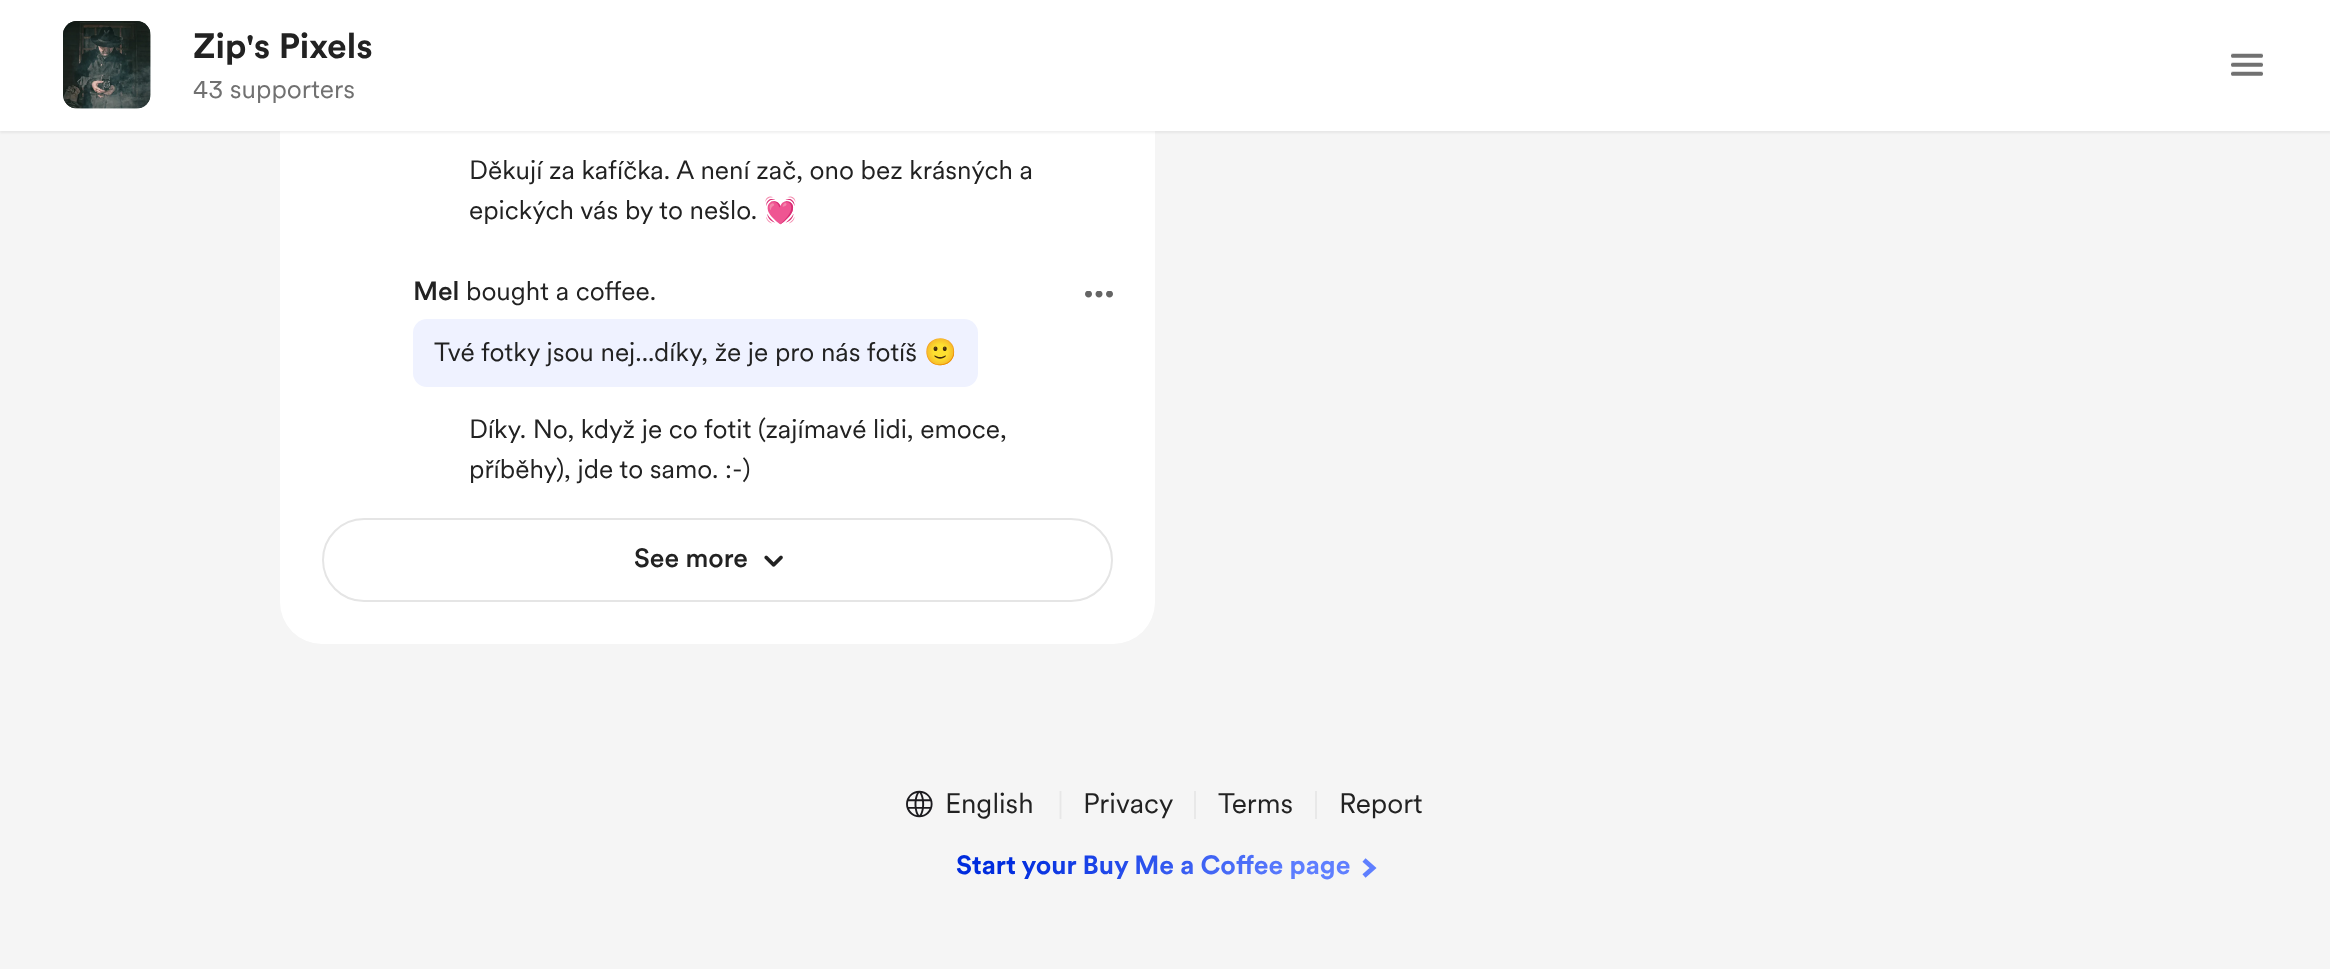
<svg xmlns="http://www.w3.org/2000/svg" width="2330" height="969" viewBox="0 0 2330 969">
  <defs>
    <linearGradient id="g1" gradientUnits="userSpaceOnUse" x1="981" y1="787" x2="1350" y2="944"><stop offset="0.14" stop-color="#002cde"/><stop offset="0.82" stop-color="#5f7fff"/></linearGradient>
    <filter id="blur1" x="-50%" y="-200%" width="200%" height="500%"><feGaussianBlur stdDeviation="1"/></filter>
  </defs>
  <rect width="100%" height="100%" fill="#f5f5f5"/>
  <rect x="280" y="-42" width="875" height="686" rx="42" fill="#ffffff"/>
  <rect x="0" y="2" width="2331" height="131" fill="#000000" fill-opacity="0.06" filter="url(#blur1)"/>
  <rect x="0" y="0" width="2330" height="131" fill="#ffffff"/>
  <image x="63" y="21" width="88" height="88" href="img1.png"/>
  <image x="63" y="21" width="88" height="88" href="img2.png"/>
  <text x="193" y="58" font-family="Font" font-size="35" font-weight="bold" fill="#222222">Zip's Pixels</text>
  <text x="193" y="98" font-family="Font" font-size="26.25" fill="#717171">43 supporters</text>
  <image x="2231" y="53" width="32" height="23" href="img3.png"/>
  <text x="469" y="179" font-family="Font" font-size="26.25" fill="#222222">Děkují za kafíčka. A není zač, ono bez krásných a</text>
  <text x="469" y="219" font-family="Font" font-size="26.25" fill="#222222">epických vás by to nešlo.</text>
  <text x="764" y="219" font-family="Noto Color Emoji" font-size="26.25" fill="#222222">💓</text>
  <text x="413" y="300" font-family="Font" font-size="26.25" font-weight="500" fill="#222222">Mel</text>
  <text x="466" y="300" font-family="Font" font-size="26.25" fill="#222222">bought a coffee.</text>
  <rect x="413" y="319" width="565" height="68" rx="14" fill="#eff2ff"/>
  <text x="434" y="361" font-family="Font" font-size="26.25" fill="#222222">Tvé fotky jsou nej...díky, že je pro nás fotíš</text>
  <text x="924" y="361" font-family="Noto Color Emoji" font-size="26.25" fill="#222222">🙂</text>
  <text x="469" y="438" font-family="Font" font-size="26.25" fill="#222222">Díky. No, když je co fotit (zajímavé lidi, emoce,</text>
  <text x="469" y="478" font-family="Font" font-size="26.25" fill="#222222">příběhy), jde to samo. :-)</text>
  <image x="1085" y="291" width="28" height="7" href="img4.png"/>
  <rect x="323" y="519" width="789" height="82" rx="41" fill="none" stroke="#e5e5e5" stroke-width="2"/>
  <text x="634" y="567" font-family="Font" font-size="26.25" font-weight="500" fill="#222222">See more</text>
  <image x="764" y="555" width="19" height="12" href="img5.png"/>
  <image x="906" y="790" width="27" height="28" href="img6.png"/>
  <text x="945" y="813" font-family="Font" font-size="28" fill="#222222">English</text>
  <path d="M1060.5 791V819" fill="none" stroke="#e7e7e7" stroke-width="1.8"/>
  <text x="1083" y="813" font-family="Font" font-size="28" fill="#222222">Privacy</text>
  <rect x="1194" y="791" width="2" height="28" fill="#e8e8e8"/>
  <text x="1218" y="813" font-family="Font" font-size="28" fill="#222222">Terms</text>
  <rect x="1315" y="791" width="2" height="28" fill="#e8e8e8"/>
  <text x="1339" y="813" font-family="Font" font-size="28" fill="#222222">Report</text>
  <text x="956" y="874" font-family="Font" font-size="26.25" font-weight="bold" fill="url(#g1)">Start your Buy Me a Coffee page</text>
  <path d="M1364 860L1373 868L1364 876" fill="none" stroke="#5f7fff" stroke-width="4.7"/>
</svg>
